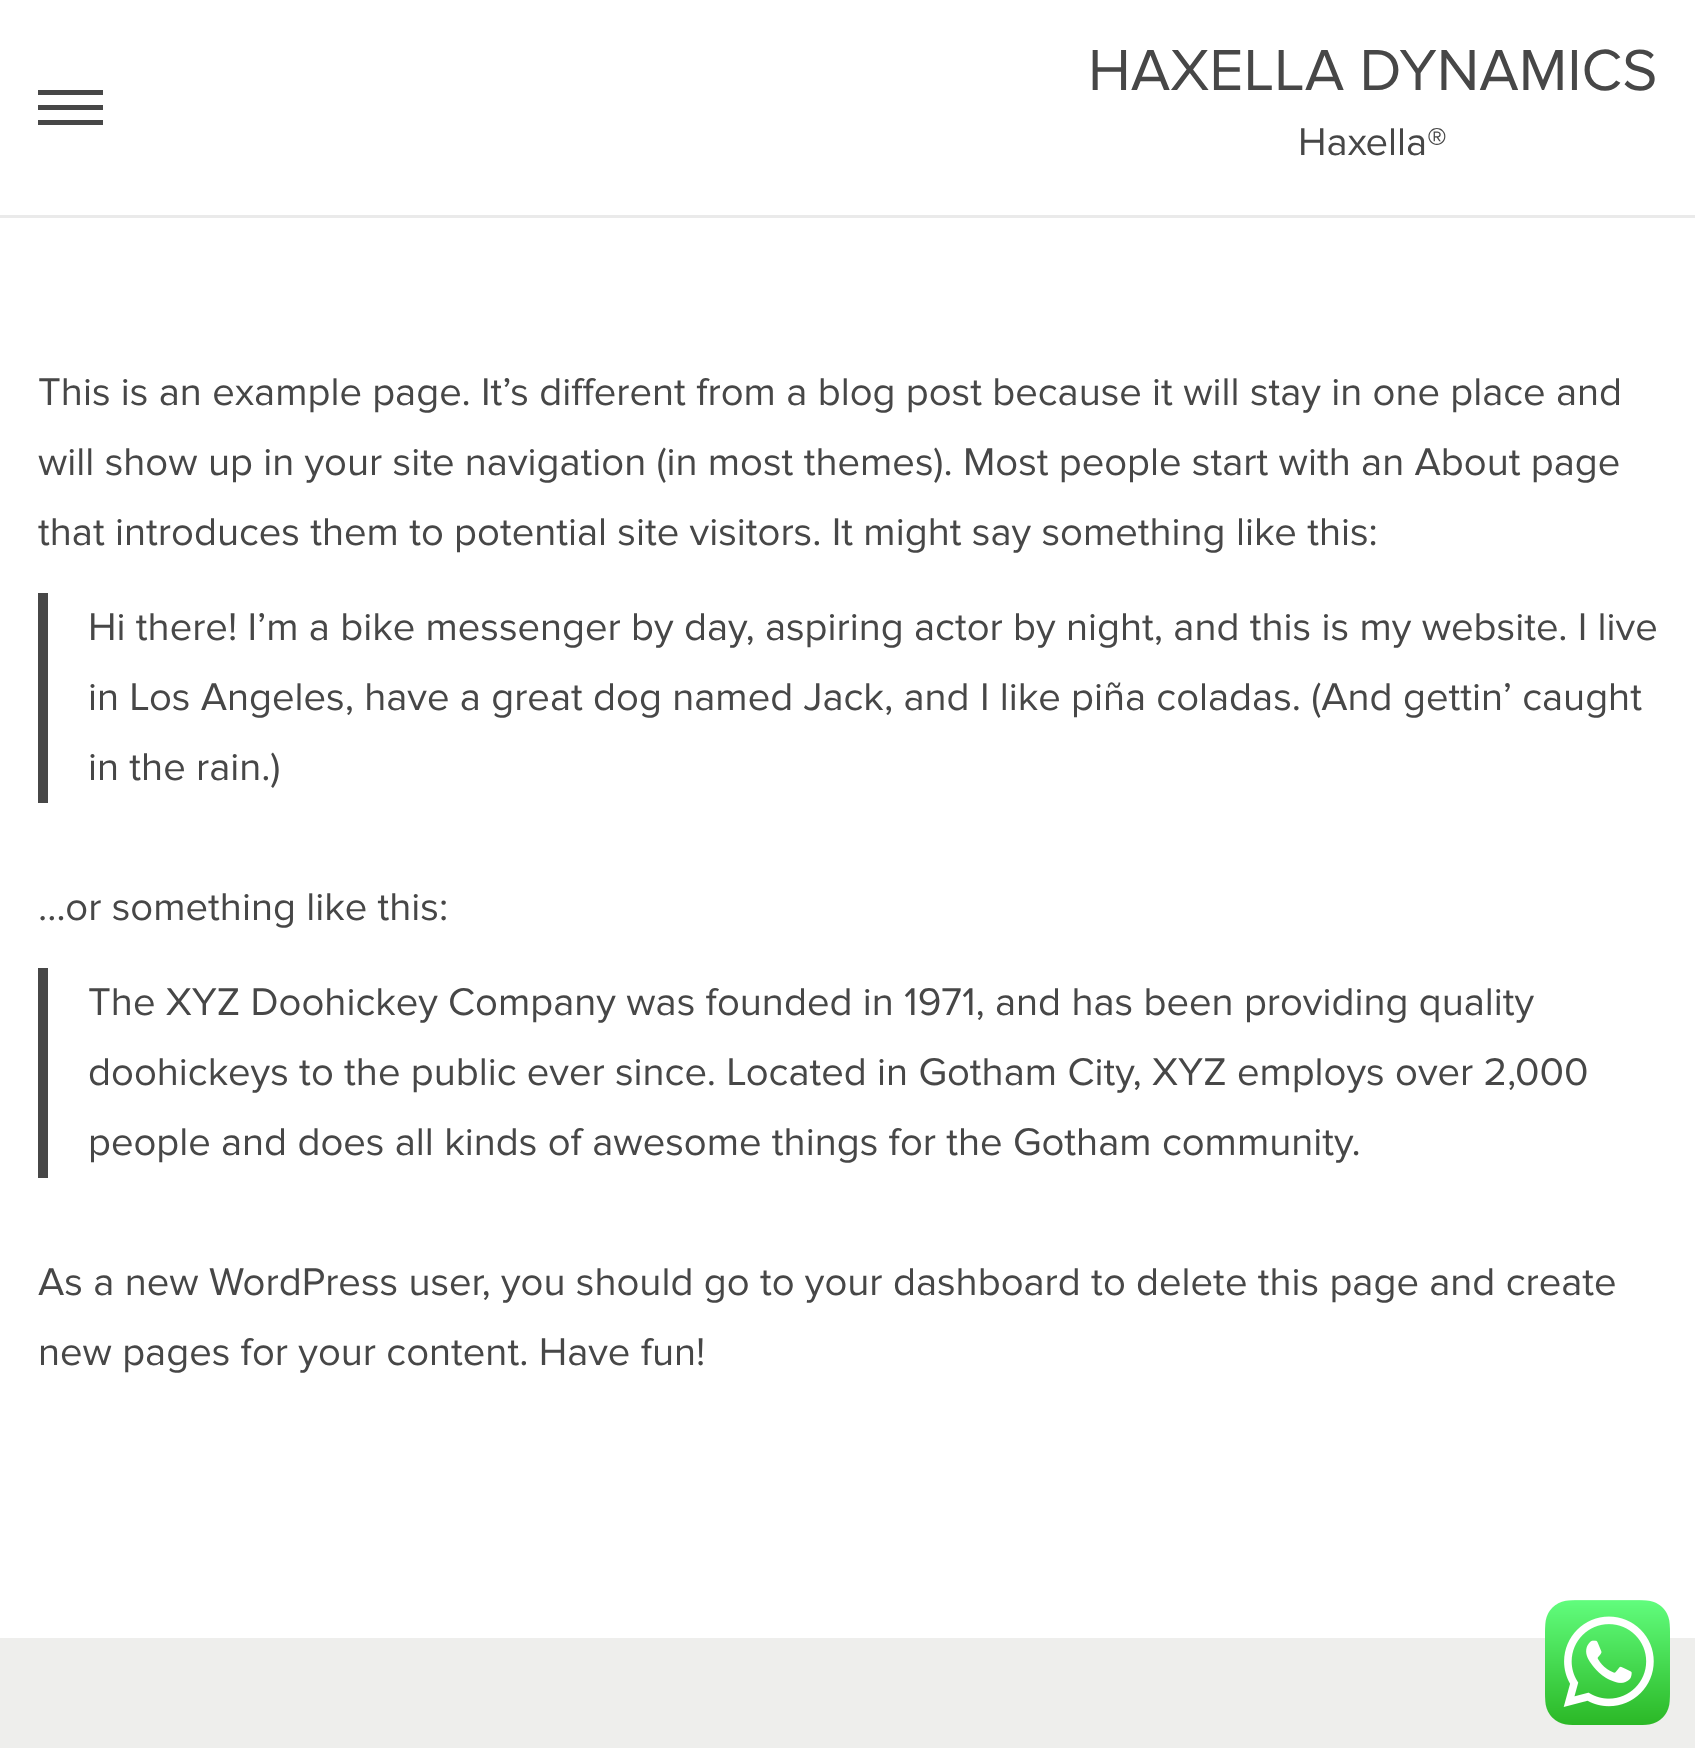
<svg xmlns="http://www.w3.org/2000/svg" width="1695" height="1748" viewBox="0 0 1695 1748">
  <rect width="100%" height="100%" fill="#ffffff"/>
  <rect x="0" y="215" width="1695" height="3" fill="#eaeaea"/>
  <rect x="38" y="105" width="65" height="5" fill="#474747"/>
  <rect x="38" y="90" width="65" height="5" fill="#474747"/>
  <rect x="38" y="120" width="65" height="5" fill="#474747"/>
  <text x="1088" y="90" font-family="Proxima Nova" font-size="60" fill="#474747">HAXELLA DYNAMICS</text>
  <text x="1298" y="155" font-family="Proxima Nova" font-size="40" fill="#474747">Haxella®</text>
  <text x="38" y="405" font-family="Proxima Nova" font-size="40" fill="#474747">This is an example page. It’s different from a blog post because it will stay in one place and</text>
  <text x="38" y="475" font-family="Proxima Nova" font-size="40" fill="#474747">will show up in your site navigation (in most themes). Most people start with an About page</text>
  <text x="38" y="545" font-family="Proxima Nova" font-size="40" fill="#474747">that introduces them to potential site visitors. It might say something like this:</text>
  <rect x="38" y="593" width="10" height="210" fill="#474747"/>
  <text x="88" y="640" font-family="Proxima Nova" font-size="40" fill="#474747">Hi there! I’m a bike messenger by day, aspiring actor by night, and this is my website. I live</text>
  <text x="88" y="710" font-family="Proxima Nova" font-size="40" fill="#474747">in Los Angeles, have a great dog named Jack, and I like piña coladas. (And gettin’ caught</text>
  <text x="88" y="780" font-family="Proxima Nova" font-size="40" fill="#474747">in the rain.)</text>
  <text x="38" y="920" font-family="Proxima Nova" font-size="40" fill="#474747">…or something like this:</text>
  <rect x="38" y="968" width="10" height="210" fill="#474747"/>
  <text x="88" y="1015" font-family="Proxima Nova" font-size="40" fill="#474747">The XYZ Doohickey Company was founded in 1971, and has been providing quality</text>
  <text x="88" y="1085" font-family="Proxima Nova" font-size="40" fill="#474747">doohickeys to the public ever since. Located in Gotham City, XYZ employs over 2,000</text>
  <text x="88" y="1155" font-family="Proxima Nova" font-size="40" fill="#474747">people and does all kinds of awesome things for the Gotham community.</text>
  <text x="38" y="1295" font-family="Proxima Nova" font-size="40" fill="#474747">As a new WordPress user, you should go to your dashboard to delete this page and create</text>
  <text x="38" y="1365" font-family="Proxima Nova" font-size="40" fill="#474747">new pages for your content. Have fun!</text>
  <rect x="0" y="1638" width="1695" height="110" fill="#eeeeec"/>
  <image x="1545" y="1600" width="125" height="125" href="img1.png"/>
</svg>
